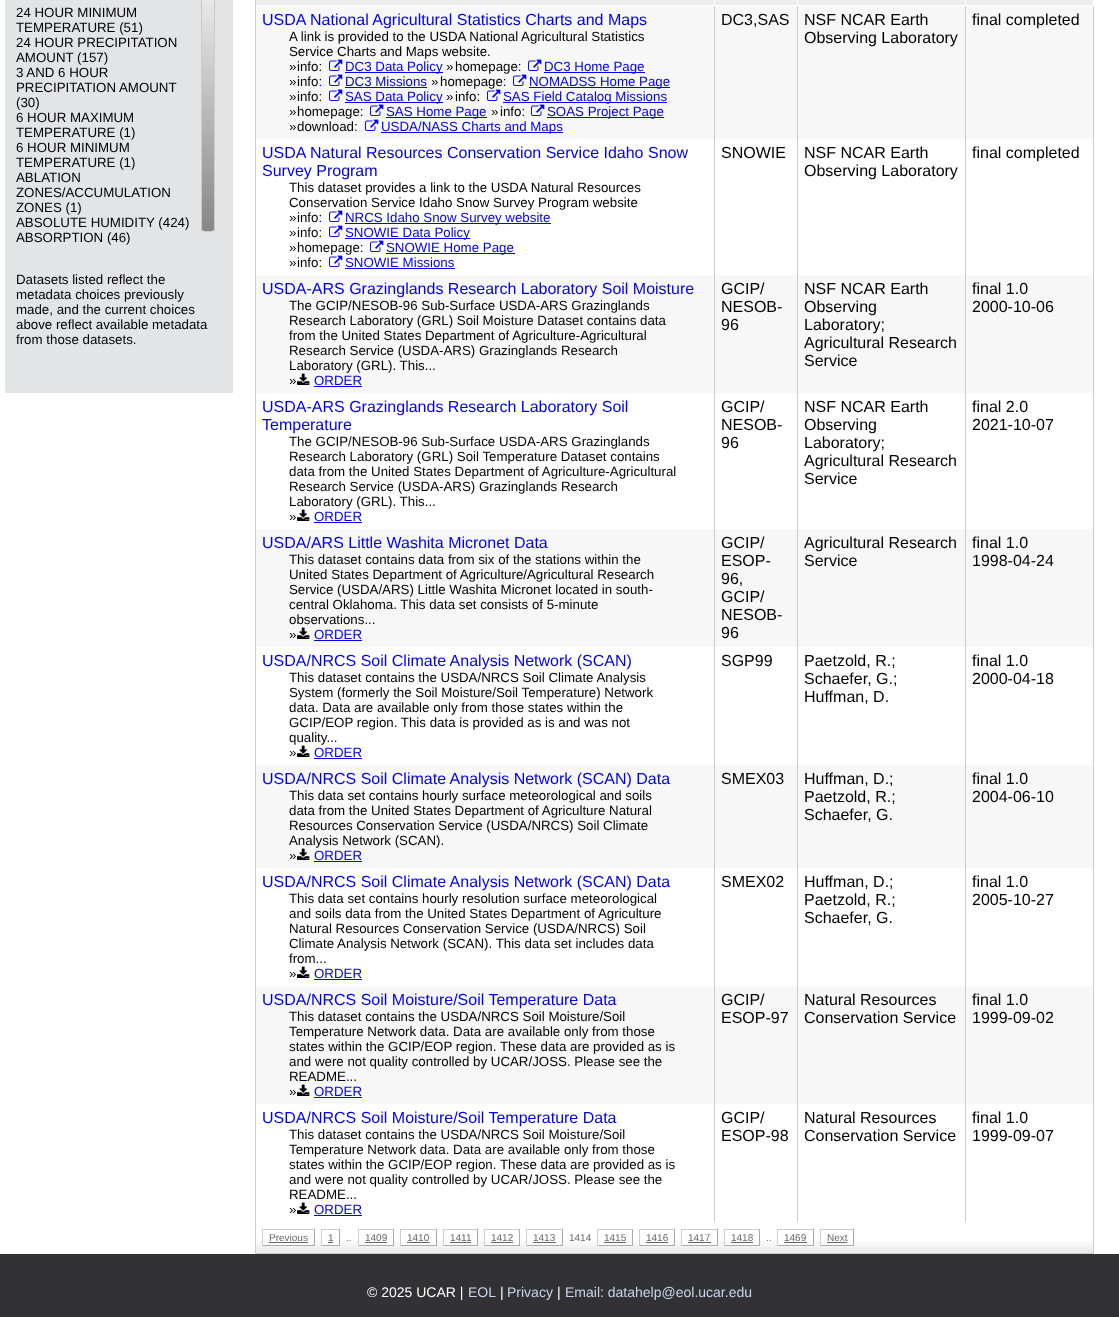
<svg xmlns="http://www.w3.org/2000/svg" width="1119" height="1317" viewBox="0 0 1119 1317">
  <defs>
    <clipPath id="clip1"><rect x="201" y="-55" width="14" height="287" rx="4"/></clipPath>
    <linearGradient id="g1" gradientUnits="userSpaceOnUse" x1="208" y1="-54" x2="208" y2="231"><stop offset="0" stop-color="#ffffff"/><stop offset="1" stop-color="#878787"/></linearGradient>
  </defs>
  <rect width="100%" height="100%" fill="#ffffff"/>
  <rect x="5" y="0" width="228" height="393" fill="#e3e4e6"/>
  <text x="16" y="17" font-family="Liberation Sans" font-size="13.3" fill="#000000">24 HOUR MINIMUM</text>
  <text x="16" y="32" font-family="Liberation Sans" font-size="13.3" fill="#000000">TEMPERATURE (51)</text>
  <text x="16" y="47" font-family="Liberation Sans" font-size="13.3" fill="#000000">24 HOUR PRECIPITATION</text>
  <text x="16" y="62" font-family="Liberation Sans" font-size="13.3" fill="#000000">AMOUNT (157)</text>
  <text x="16" y="77" font-family="Liberation Sans" font-size="13.3" fill="#000000">3 AND 6 HOUR</text>
  <text x="16" y="92" font-family="Liberation Sans" font-size="13.3" fill="#000000">PRECIPITATION AMOUNT</text>
  <text x="16" y="107" font-family="Liberation Sans" font-size="13.3" fill="#000000">(30)</text>
  <text x="16" y="122" font-family="Liberation Sans" font-size="13.3" fill="#000000">6 HOUR MAXIMUM</text>
  <text x="16" y="137" font-family="Liberation Sans" font-size="13.3" fill="#000000">TEMPERATURE (1)</text>
  <text x="16" y="152" font-family="Liberation Sans" font-size="13.3" fill="#000000">6 HOUR MINIMUM</text>
  <text x="16" y="167" font-family="Liberation Sans" font-size="13.3" fill="#000000">TEMPERATURE (1)</text>
  <text x="16" y="182" font-family="Liberation Sans" font-size="13.3" fill="#000000">ABLATION</text>
  <text x="16" y="197" font-family="Liberation Sans" font-size="13.3" fill="#000000">ZONES/ACCUMULATION</text>
  <text x="16" y="212" font-family="Liberation Sans" font-size="13.3" fill="#000000">ZONES (1)</text>
  <text x="16" y="227" font-family="Liberation Sans" font-size="13.3" fill="#000000">ABSOLUTE HUMIDITY (424)</text>
  <text x="16" y="242" font-family="Liberation Sans" font-size="13.3" fill="#000000">ABSORPTION (46)</text>
  <g clip-path="url(#clip1)">
    <rect x="201" y="0" width="14" height="231" fill="url(#g1)"/>
  </g>
  <rect x="201.5" y="-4.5" width="13" height="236" rx="3.5" fill="none" stroke="#cccccc"/>
  <text x="16" y="284" font-family="Liberation Sans" font-size="13.3" fill="#000000">Datasets listed reflect the</text>
  <text x="16" y="299" font-family="Liberation Sans" font-size="13.3" fill="#000000">metadata choices previously</text>
  <text x="16" y="314" font-family="Liberation Sans" font-size="13.3" fill="#000000">made, and the current choices</text>
  <text x="16" y="329" font-family="Liberation Sans" font-size="13.3" fill="#000000">above reflect available metadata</text>
  <text x="16" y="344" font-family="Liberation Sans" font-size="13.3" fill="#000000">from those datasets.</text>
  <rect x="256" y="0" width="458" height="5" fill="#ededed"/>
  <rect x="256" y="6" width="837" height="133" fill="#f7f7f7"/>
  <rect x="256" y="275" width="837" height="118" fill="#f7f7f7"/>
  <rect x="256" y="529" width="837" height="118" fill="#f7f7f7"/>
  <rect x="256" y="765" width="837" height="103" fill="#f7f7f7"/>
  <rect x="256" y="986" width="837" height="118" fill="#f7f7f7"/>
  <rect x="714" y="5" width="1" height="1217" fill="#cccccc"/>
  <rect x="797" y="5" width="1" height="1217" fill="#cccccc"/>
  <rect x="714" y="5" width="84" height="1" fill="#ffffff"/>
  <rect x="715" y="0" width="82" height="5" fill="#ededed"/>
  <rect x="965" y="5" width="1" height="1217" fill="#cccccc"/>
  <rect x="965" y="5" width="1" height="1" fill="#ffffff"/>
  <rect x="798" y="0" width="167" height="5" fill="#ededed"/>
  <rect x="1093" y="5" width="1" height="1217" fill="#cccccc"/>
  <rect x="1093" y="5" width="1" height="1" fill="#ffffff"/>
  <rect x="966" y="0" width="127" height="5" fill="#ededed"/>
  <text x="262" y="25" font-family="Liberation Sans" font-size="16" fill="#0000ee">USDA National Agricultural Statistics Charts and Maps</text>
  <text x="289" y="41" font-family="Liberation Sans" font-size="13.3" fill="#000000">A link is provided to the USDA National Agricultural Statistics</text>
  <text x="289" y="56" font-family="Liberation Sans" font-size="13.3" fill="#000000">Service Charts and Maps website.</text>
  <text x="289" y="71" font-family="Liberation Sans" font-size="13.3" fill="#000000">»</text>
  <text x="297" y="71" font-family="Liberation Sans" font-size="13.3" fill="#000000">info:</text>
  <image x="329" y="59" width="14" height="12" href="img1.png"/>
  <rect x="345" y="72" width="98" height="1" fill="#0000ee"/>
  <text x="345" y="71" font-family="Liberation Sans" font-size="13.3" fill="#0000ee">DC3 Data Policy</text>
  <text x="446" y="71" font-family="Liberation Sans" font-size="13.3" fill="#000000">»</text>
  <text x="455" y="71" font-family="Liberation Sans" font-size="13.3" fill="#000000">homepage:</text>
  <image x="528" y="59" width="14" height="12" href="img1.png"/>
  <rect x="544" y="72" width="101" height="1" fill="#0000ee"/>
  <text x="544" y="71" font-family="Liberation Sans" font-size="13.3" fill="#0000ee">DC3 Home Page</text>
  <text x="289" y="86" font-family="Liberation Sans" font-size="13.3" fill="#000000">»</text>
  <text x="297" y="86" font-family="Liberation Sans" font-size="13.3" fill="#000000">info:</text>
  <image x="329" y="74" width="14" height="12" href="img1.png"/>
  <text x="345" y="86" font-family="Liberation Sans" font-size="13.3" fill="#0000ee">DC3 Missions</text>
  <rect x="345" y="87" width="82" height="1" fill="#0000ee"/>
  <text x="431" y="86" font-family="Liberation Sans" font-size="13.3" fill="#000000">»</text>
  <text x="440" y="86" font-family="Liberation Sans" font-size="13.3" fill="#000000">homepage:</text>
  <image x="513" y="74" width="14" height="12" href="img1.png"/>
  <rect x="529" y="87" width="141" height="1" fill="#0000ee"/>
  <text x="529" y="86" font-family="Liberation Sans" font-size="13.3" fill="#0000ee">NOMADSS Home Page</text>
  <text x="289" y="101" font-family="Liberation Sans" font-size="13.3" fill="#000000">»</text>
  <text x="297" y="101" font-family="Liberation Sans" font-size="13.3" fill="#000000">info:</text>
  <image x="329" y="89" width="14" height="12" href="img1.png"/>
  <rect x="345" y="102" width="98" height="1" fill="#0000ee"/>
  <text x="345" y="101" font-family="Liberation Sans" font-size="13.3" fill="#0000ee">SAS Data Policy</text>
  <text x="446" y="101" font-family="Liberation Sans" font-size="13.3" fill="#000000">»</text>
  <text x="455" y="101" font-family="Liberation Sans" font-size="13.3" fill="#000000">info:</text>
  <image x="487" y="89" width="14" height="12" href="img1.png"/>
  <rect x="503" y="102" width="164" height="1" fill="#0000ee"/>
  <text x="503" y="101" font-family="Liberation Sans" font-size="13.3" fill="#0000ee">SAS Field Catalog Missions</text>
  <text x="289" y="116" font-family="Liberation Sans" font-size="13.3" fill="#000000">»</text>
  <text x="297" y="116" font-family="Liberation Sans" font-size="13.3" fill="#000000">homepage:</text>
  <image x="370" y="104" width="14" height="12" href="img1.png"/>
  <rect x="386" y="117" width="101" height="1" fill="#0000ee"/>
  <text x="386" y="116" font-family="Liberation Sans" font-size="13.3" fill="#0000ee">SAS Home Page</text>
  <text x="491" y="116" font-family="Liberation Sans" font-size="13.3" fill="#000000">»</text>
  <text x="500" y="116" font-family="Liberation Sans" font-size="13.3" fill="#000000">info:</text>
  <image x="531" y="104" width="14" height="12" href="img1.png"/>
  <rect x="547" y="117" width="117" height="1" fill="#0000ee"/>
  <text x="547" y="116" font-family="Liberation Sans" font-size="13.3" fill="#0000ee">SOAS Project Page</text>
  <text x="289" y="131" font-family="Liberation Sans" font-size="13.3" fill="#000000">»</text>
  <text x="297" y="131" font-family="Liberation Sans" font-size="13.3" fill="#000000">download:</text>
  <image x="365" y="119" width="14" height="12" href="img1.png"/>
  <rect x="381" y="132" width="182" height="1" fill="#0000ee"/>
  <text x="381" y="131" font-family="Liberation Sans" font-size="13.3" fill="#0000ee">USDA/NASS Charts and Maps</text>
  <text x="721" y="25" font-family="Liberation Sans" font-size="16" fill="#000000">DC3,SAS</text>
  <text x="804" y="25" font-family="Liberation Sans" font-size="16" fill="#000000">NSF NCAR Earth</text>
  <text x="804" y="43" font-family="Liberation Sans" font-size="16" fill="#000000">Observing Laboratory</text>
  <text x="972" y="25" font-family="Liberation Sans" font-size="16" fill="#000000">final completed</text>
  <text x="262" y="158" font-family="Liberation Sans" font-size="16" fill="#0000ee">USDA Natural Resources Conservation Service Idaho Snow</text>
  <text x="262" y="176" font-family="Liberation Sans" font-size="16" fill="#0000ee">Survey Program</text>
  <text x="289" y="192" font-family="Liberation Sans" font-size="13.3" fill="#000000">This dataset provides a link to the USDA Natural Resources</text>
  <text x="289" y="207" font-family="Liberation Sans" font-size="13.3" fill="#000000">Conservation Service Idaho Snow Survey Program website</text>
  <text x="289" y="222" font-family="Liberation Sans" font-size="13.3" fill="#000000">»</text>
  <text x="297" y="222" font-family="Liberation Sans" font-size="13.3" fill="#000000">info:</text>
  <image x="329" y="210" width="14" height="12" href="img2.png"/>
  <rect x="345" y="223" width="206" height="1" fill="#0000ee"/>
  <text x="345" y="222" font-family="Liberation Sans" font-size="13.3" fill="#0000ee">NRCS Idaho Snow Survey website</text>
  <text x="289" y="237" font-family="Liberation Sans" font-size="13.3" fill="#000000">»</text>
  <text x="297" y="237" font-family="Liberation Sans" font-size="13.3" fill="#000000">info:</text>
  <image x="329" y="225" width="14" height="12" href="img2.png"/>
  <rect x="345" y="238" width="125" height="1" fill="#0000ee"/>
  <text x="345" y="237" font-family="Liberation Sans" font-size="13.3" fill="#0000ee">SNOWIE Data Policy</text>
  <text x="289" y="252" font-family="Liberation Sans" font-size="13.3" fill="#000000">»</text>
  <text x="297" y="252" font-family="Liberation Sans" font-size="13.3" fill="#000000">homepage:</text>
  <image x="370" y="240" width="14" height="12" href="img2.png"/>
  <rect x="386" y="253" width="129" height="1" fill="#0000ee"/>
  <text x="386" y="252" font-family="Liberation Sans" font-size="13.3" fill="#0000ee">SNOWIE Home Page</text>
  <text x="289" y="267" font-family="Liberation Sans" font-size="13.3" fill="#000000">»</text>
  <text x="297" y="267" font-family="Liberation Sans" font-size="13.3" fill="#000000">info:</text>
  <image x="329" y="255" width="14" height="12" href="img2.png"/>
  <text x="345" y="267" font-family="Liberation Sans" font-size="13.3" fill="#0000ee">SNOWIE Missions</text>
  <rect x="345" y="268" width="110" height="1" fill="#0000ee"/>
  <text x="721" y="158" font-family="Liberation Sans" font-size="16" fill="#000000">SNOWIE</text>
  <text x="804" y="158" font-family="Liberation Sans" font-size="16" fill="#000000">NSF NCAR Earth</text>
  <text x="804" y="176" font-family="Liberation Sans" font-size="16" fill="#000000">Observing Laboratory</text>
  <text x="972" y="158" font-family="Liberation Sans" font-size="16" fill="#000000">final completed</text>
  <text x="262" y="294" font-family="Liberation Sans" font-size="16" fill="#0000ee">USDA-ARS Grazinglands Research Laboratory Soil Moisture</text>
  <text x="289" y="310" font-family="Liberation Sans" font-size="13.3" fill="#000000">The GCIP/NESOB-96 Sub-Surface USDA-ARS Grazinglands</text>
  <text x="289" y="325" font-family="Liberation Sans" font-size="13.3" fill="#000000">Research Laboratory (GRL) Soil Moisture Dataset contains data</text>
  <text x="289" y="340" font-family="Liberation Sans" font-size="13.3" fill="#000000">from the United States Department of Agriculture-Agricultural</text>
  <text x="289" y="355" font-family="Liberation Sans" font-size="13.3" fill="#000000">Research Service (USDA-ARS) Grazinglands Research</text>
  <text x="289" y="370" font-family="Liberation Sans" font-size="13.3" fill="#000000">Laboratory (GRL). This...</text>
  <text x="289" y="385" font-family="Liberation Sans" font-size="13.3" fill="#000000">»</text>
  <image x="297" y="373" width="13" height="12" href="img3.png"/>
  <text x="314" y="385" font-family="Liberation Sans" font-size="13.3" fill="#0000ee">ORDER</text>
  <rect x="314" y="386" width="48" height="1" fill="#0000ee"/>
  <text x="721" y="294" font-family="Liberation Sans" font-size="16" fill="#000000">GCIP/</text>
  <text x="721" y="312" font-family="Liberation Sans" font-size="16" fill="#000000">NESOB-</text>
  <text x="721" y="330" font-family="Liberation Sans" font-size="16" fill="#000000">96</text>
  <text x="804" y="294" font-family="Liberation Sans" font-size="16" fill="#000000">NSF NCAR Earth</text>
  <text x="804" y="312" font-family="Liberation Sans" font-size="16" fill="#000000">Observing</text>
  <text x="804" y="330" font-family="Liberation Sans" font-size="16" fill="#000000">Laboratory;</text>
  <text x="804" y="348" font-family="Liberation Sans" font-size="16" fill="#000000">Agricultural Research</text>
  <text x="804" y="366" font-family="Liberation Sans" font-size="16" fill="#000000">Service</text>
  <text x="972" y="294" font-family="Liberation Sans" font-size="16" fill="#000000">final 1.0</text>
  <text x="972" y="312" font-family="Liberation Sans" font-size="16" fill="#000000">2000-10-06</text>
  <text x="262" y="412" font-family="Liberation Sans" font-size="16" fill="#0000ee">USDA-ARS Grazinglands Research Laboratory Soil</text>
  <text x="262" y="430" font-family="Liberation Sans" font-size="16" fill="#0000ee">Temperature</text>
  <text x="289" y="446" font-family="Liberation Sans" font-size="13.3" fill="#000000">The GCIP/NESOB-96 Sub-Surface USDA-ARS Grazinglands</text>
  <text x="289" y="461" font-family="Liberation Sans" font-size="13.3" fill="#000000">Research Laboratory (GRL) Soil Temperature Dataset contains</text>
  <text x="289" y="476" font-family="Liberation Sans" font-size="13.3" fill="#000000">data from the United States Department of Agriculture-Agricultural</text>
  <text x="289" y="491" font-family="Liberation Sans" font-size="13.3" fill="#000000">Research Service (USDA-ARS) Grazinglands Research</text>
  <text x="289" y="506" font-family="Liberation Sans" font-size="13.3" fill="#000000">Laboratory (GRL). This...</text>
  <text x="289" y="521" font-family="Liberation Sans" font-size="13.3" fill="#000000">»</text>
  <image x="297" y="509" width="13" height="12" href="img4.png"/>
  <text x="314" y="521" font-family="Liberation Sans" font-size="13.3" fill="#0000ee">ORDER</text>
  <rect x="314" y="522" width="48" height="1" fill="#0000ee"/>
  <text x="721" y="412" font-family="Liberation Sans" font-size="16" fill="#000000">GCIP/</text>
  <text x="721" y="430" font-family="Liberation Sans" font-size="16" fill="#000000">NESOB-</text>
  <text x="721" y="448" font-family="Liberation Sans" font-size="16" fill="#000000">96</text>
  <text x="804" y="412" font-family="Liberation Sans" font-size="16" fill="#000000">NSF NCAR Earth</text>
  <text x="804" y="430" font-family="Liberation Sans" font-size="16" fill="#000000">Observing</text>
  <text x="804" y="448" font-family="Liberation Sans" font-size="16" fill="#000000">Laboratory;</text>
  <text x="804" y="466" font-family="Liberation Sans" font-size="16" fill="#000000">Agricultural Research</text>
  <text x="804" y="484" font-family="Liberation Sans" font-size="16" fill="#000000">Service</text>
  <text x="972" y="412" font-family="Liberation Sans" font-size="16" fill="#000000">final 2.0</text>
  <text x="972" y="430" font-family="Liberation Sans" font-size="16" fill="#000000">2021-10-07</text>
  <text x="262" y="548" font-family="Liberation Sans" font-size="16" fill="#0000ee">USDA/ARS Little Washita Micronet Data</text>
  <text x="289" y="564" font-family="Liberation Sans" font-size="13.3" fill="#000000">This dataset contains data from six of the stations within the</text>
  <text x="289" y="579" font-family="Liberation Sans" font-size="13.3" fill="#000000">United States Department of Agriculture/Agricultural Research</text>
  <text x="289" y="594" font-family="Liberation Sans" font-size="13.3" fill="#000000">Service (USDA/ARS) Little Washita Micronet located in south-</text>
  <text x="289" y="609" font-family="Liberation Sans" font-size="13.3" fill="#000000">central Oklahoma. This data set consists of 5-minute</text>
  <text x="289" y="624" font-family="Liberation Sans" font-size="13.3" fill="#000000">observations...</text>
  <text x="289" y="639" font-family="Liberation Sans" font-size="13.3" fill="#000000">»</text>
  <image x="297" y="627" width="13" height="12" href="img3.png"/>
  <text x="314" y="639" font-family="Liberation Sans" font-size="13.3" fill="#0000ee">ORDER</text>
  <rect x="314" y="640" width="48" height="1" fill="#0000ee"/>
  <text x="721" y="548" font-family="Liberation Sans" font-size="16" fill="#000000">GCIP/</text>
  <text x="721" y="566" font-family="Liberation Sans" font-size="16" fill="#000000">ESOP-</text>
  <text x="721" y="584" font-family="Liberation Sans" font-size="16" fill="#000000">96,</text>
  <text x="721" y="602" font-family="Liberation Sans" font-size="16" fill="#000000">GCIP/</text>
  <text x="721" y="620" font-family="Liberation Sans" font-size="16" fill="#000000">NESOB-</text>
  <text x="721" y="638" font-family="Liberation Sans" font-size="16" fill="#000000">96</text>
  <text x="804" y="548" font-family="Liberation Sans" font-size="16" fill="#000000">Agricultural Research</text>
  <text x="804" y="566" font-family="Liberation Sans" font-size="16" fill="#000000">Service</text>
  <text x="972" y="548" font-family="Liberation Sans" font-size="16" fill="#000000">final 1.0</text>
  <text x="972" y="566" font-family="Liberation Sans" font-size="16" fill="#000000">1998-04-24</text>
  <text x="262" y="666" font-family="Liberation Sans" font-size="16" fill="#0000ee">USDA/NRCS Soil Climate Analysis Network (SCAN)</text>
  <text x="289" y="682" font-family="Liberation Sans" font-size="13.3" fill="#000000">This dataset contains the USDA/NRCS Soil Climate Analysis</text>
  <text x="289" y="697" font-family="Liberation Sans" font-size="13.3" fill="#000000">System (formerly the Soil Moisture/Soil Temperature) Network</text>
  <text x="289" y="712" font-family="Liberation Sans" font-size="13.3" fill="#000000">data. Data are available only from those states within the</text>
  <text x="289" y="727" font-family="Liberation Sans" font-size="13.3" fill="#000000">GCIP/EOP region. This data is provided as is and was not</text>
  <text x="289" y="742" font-family="Liberation Sans" font-size="13.3" fill="#000000">quality...</text>
  <text x="289" y="757" font-family="Liberation Sans" font-size="13.3" fill="#000000">»</text>
  <image x="297" y="745" width="13" height="12" href="img4.png"/>
  <text x="314" y="757" font-family="Liberation Sans" font-size="13.3" fill="#0000ee">ORDER</text>
  <rect x="314" y="758" width="48" height="1" fill="#0000ee"/>
  <text x="721" y="666" font-family="Liberation Sans" font-size="16" fill="#000000">SGP99</text>
  <text x="804" y="666" font-family="Liberation Sans" font-size="16" fill="#000000">Paetzold, R.;</text>
  <text x="804" y="684" font-family="Liberation Sans" font-size="16" fill="#000000">Schaefer, G.;</text>
  <text x="804" y="702" font-family="Liberation Sans" font-size="16" fill="#000000">Huffman, D.</text>
  <text x="972" y="666" font-family="Liberation Sans" font-size="16" fill="#000000">final 1.0</text>
  <text x="972" y="684" font-family="Liberation Sans" font-size="16" fill="#000000">2000-04-18</text>
  <text x="262" y="784" font-family="Liberation Sans" font-size="16" fill="#0000ee">USDA/NRCS Soil Climate Analysis Network (SCAN) Data</text>
  <text x="289" y="800" font-family="Liberation Sans" font-size="13.3" fill="#000000">This data set contains hourly surface meteorological and soils</text>
  <text x="289" y="815" font-family="Liberation Sans" font-size="13.3" fill="#000000">data from the United States Department of Agriculture Natural</text>
  <text x="289" y="830" font-family="Liberation Sans" font-size="13.3" fill="#000000">Resources Conservation Service (USDA/NRCS) Soil Climate</text>
  <text x="289" y="845" font-family="Liberation Sans" font-size="13.3" fill="#000000">Analysis Network (SCAN).</text>
  <text x="289" y="860" font-family="Liberation Sans" font-size="13.3" fill="#000000">»</text>
  <image x="297" y="848" width="13" height="12" href="img3.png"/>
  <text x="314" y="860" font-family="Liberation Sans" font-size="13.3" fill="#0000ee">ORDER</text>
  <rect x="314" y="861" width="48" height="1" fill="#0000ee"/>
  <text x="721" y="784" font-family="Liberation Sans" font-size="16" fill="#000000">SMEX03</text>
  <text x="804" y="784" font-family="Liberation Sans" font-size="16" fill="#000000">Huffman, D.;</text>
  <text x="804" y="802" font-family="Liberation Sans" font-size="16" fill="#000000">Paetzold, R.;</text>
  <text x="804" y="820" font-family="Liberation Sans" font-size="16" fill="#000000">Schaefer, G.</text>
  <text x="972" y="784" font-family="Liberation Sans" font-size="16" fill="#000000">final 1.0</text>
  <text x="972" y="802" font-family="Liberation Sans" font-size="16" fill="#000000">2004-06-10</text>
  <text x="262" y="887" font-family="Liberation Sans" font-size="16" fill="#0000ee">USDA/NRCS Soil Climate Analysis Network (SCAN) Data</text>
  <text x="289" y="903" font-family="Liberation Sans" font-size="13.3" fill="#000000">This data set contains hourly resolution surface meteorological</text>
  <text x="289" y="918" font-family="Liberation Sans" font-size="13.3" fill="#000000">and soils data from the United States Department of Agriculture</text>
  <text x="289" y="933" font-family="Liberation Sans" font-size="13.3" fill="#000000">Natural Resources Conservation Service (USDA/NRCS) Soil</text>
  <text x="289" y="948" font-family="Liberation Sans" font-size="13.3" fill="#000000">Climate Analysis Network (SCAN). This data set includes data</text>
  <text x="289" y="963" font-family="Liberation Sans" font-size="13.3" fill="#000000">from...</text>
  <text x="289" y="978" font-family="Liberation Sans" font-size="13.3" fill="#000000">»</text>
  <image x="297" y="966" width="13" height="12" href="img4.png"/>
  <text x="314" y="978" font-family="Liberation Sans" font-size="13.3" fill="#0000ee">ORDER</text>
  <rect x="314" y="979" width="48" height="1" fill="#0000ee"/>
  <text x="721" y="887" font-family="Liberation Sans" font-size="16" fill="#000000">SMEX02</text>
  <text x="804" y="887" font-family="Liberation Sans" font-size="16" fill="#000000">Huffman, D.;</text>
  <text x="804" y="905" font-family="Liberation Sans" font-size="16" fill="#000000">Paetzold, R.;</text>
  <text x="804" y="923" font-family="Liberation Sans" font-size="16" fill="#000000">Schaefer, G.</text>
  <text x="972" y="887" font-family="Liberation Sans" font-size="16" fill="#000000">final 1.0</text>
  <text x="972" y="905" font-family="Liberation Sans" font-size="16" fill="#000000">2005-10-27</text>
  <text x="262" y="1005" font-family="Liberation Sans" font-size="16" fill="#0000ee">USDA/NRCS Soil Moisture/Soil Temperature Data</text>
  <text x="289" y="1021" font-family="Liberation Sans" font-size="13.3" fill="#000000">This dataset contains the USDA/NRCS Soil Moisture/Soil</text>
  <text x="289" y="1036" font-family="Liberation Sans" font-size="13.3" fill="#000000">Temperature Network data. Data are available only from those</text>
  <text x="289" y="1051" font-family="Liberation Sans" font-size="13.3" fill="#000000">states within the GCIP/EOP region. These data are provided as is</text>
  <text x="289" y="1066" font-family="Liberation Sans" font-size="13.3" fill="#000000">and were not quality controlled by UCAR/JOSS. Please see the</text>
  <text x="289" y="1081" font-family="Liberation Sans" font-size="13.3" fill="#000000">README...</text>
  <text x="289" y="1096" font-family="Liberation Sans" font-size="13.3" fill="#000000">»</text>
  <image x="297" y="1084" width="13" height="12" href="img3.png"/>
  <text x="314" y="1096" font-family="Liberation Sans" font-size="13.3" fill="#0000ee">ORDER</text>
  <rect x="314" y="1097" width="48" height="1" fill="#0000ee"/>
  <text x="721" y="1005" font-family="Liberation Sans" font-size="16" fill="#000000">GCIP/</text>
  <text x="721" y="1023" font-family="Liberation Sans" font-size="16" fill="#000000">ESOP-97</text>
  <text x="804" y="1005" font-family="Liberation Sans" font-size="16" fill="#000000">Natural Resources</text>
  <text x="804" y="1023" font-family="Liberation Sans" font-size="16" fill="#000000">Conservation Service</text>
  <text x="972" y="1005" font-family="Liberation Sans" font-size="16" fill="#000000">final 1.0</text>
  <text x="972" y="1023" font-family="Liberation Sans" font-size="16" fill="#000000">1999-09-02</text>
  <rect x="255" y="0" width="1" height="1222" fill="#cccccc"/>
  <text x="262" y="1123" font-family="Liberation Sans" font-size="16" fill="#0000ee">USDA/NRCS Soil Moisture/Soil Temperature Data</text>
  <text x="289" y="1139" font-family="Liberation Sans" font-size="13.3" fill="#000000">This dataset contains the USDA/NRCS Soil Moisture/Soil</text>
  <text x="289" y="1154" font-family="Liberation Sans" font-size="13.3" fill="#000000">Temperature Network data. Data are available only from those</text>
  <text x="289" y="1169" font-family="Liberation Sans" font-size="13.3" fill="#000000">states within the GCIP/EOP region. These data are provided as is</text>
  <text x="289" y="1184" font-family="Liberation Sans" font-size="13.3" fill="#000000">and were not quality controlled by UCAR/JOSS. Please see the</text>
  <text x="289" y="1199" font-family="Liberation Sans" font-size="13.3" fill="#000000">README...</text>
  <text x="289" y="1214" font-family="Liberation Sans" font-size="13.3" fill="#000000">»</text>
  <image x="297" y="1202" width="13" height="12" href="img4.png"/>
  <text x="314" y="1214" font-family="Liberation Sans" font-size="13.3" fill="#0000ee">ORDER</text>
  <rect x="314" y="1215" width="48" height="1" fill="#0000ee"/>
  <text x="721" y="1123" font-family="Liberation Sans" font-size="16" fill="#000000">GCIP/</text>
  <text x="721" y="1141" font-family="Liberation Sans" font-size="16" fill="#000000">ESOP-98</text>
  <text x="804" y="1123" font-family="Liberation Sans" font-size="16" fill="#000000">Natural Resources</text>
  <text x="804" y="1141" font-family="Liberation Sans" font-size="16" fill="#000000">Conservation Service</text>
  <text x="972" y="1123" font-family="Liberation Sans" font-size="16" fill="#000000">final 1.0</text>
  <text x="972" y="1141" font-family="Liberation Sans" font-size="16" fill="#000000">1999-09-07</text>
  <image x="256" y="1241" width="837" height="12" href="img5.png"/>
  <rect x="1093" y="1222" width="1" height="32" fill="#cccccc"/>
  <rect x="255" y="1253" width="839" height="1" fill="#cccccc"/>
  <rect x="255" y="1222" width="1" height="32" fill="#cccccc"/>
  <rect x="263" y="1241" width="51" height="4" fill="#ffffff"/>
  <text x="269" y="1241" font-family="Liberation Sans" font-size="10" fill="#666666">Previous</text>
  <rect x="262" y="1229" width="53" height="1" fill="#cccccc"/>
  <rect x="314" y="1229" width="1" height="17" fill="#aaaaaa"/>
  <rect x="262" y="1245" width="53" height="1" fill="#aaaaaa"/>
  <rect x="262" y="1229" width="1" height="17" fill="#cccccc"/>
  <rect x="269" y="1242" width="39" height="1" fill="#666666"/>
  <text x="328" y="1241" font-family="Liberation Sans" font-size="10" fill="#666666">1</text>
  <rect x="322" y="1241" width="17" height="4" fill="#ffffff"/>
  <rect x="321" y="1229" width="19" height="1" fill="#cccccc"/>
  <rect x="339" y="1229" width="1" height="17" fill="#aaaaaa"/>
  <rect x="321" y="1245" width="19" height="1" fill="#aaaaaa"/>
  <rect x="321" y="1229" width="1" height="17" fill="#cccccc"/>
  <rect x="328" y="1242" width="5" height="1" fill="#666666"/>
  <text x="346" y="1241" font-family="Liberation Sans" font-size="10" fill="#666666">..</text>
  <rect x="359" y="1241" width="34" height="4" fill="#ffffff"/>
  <text x="365" y="1241" font-family="Liberation Sans" font-size="10" fill="#666666">1409</text>
  <rect x="358" y="1229" width="36" height="1" fill="#cccccc"/>
  <rect x="393" y="1229" width="1" height="17" fill="#aaaaaa"/>
  <rect x="358" y="1245" width="36" height="1" fill="#aaaaaa"/>
  <rect x="358" y="1229" width="1" height="17" fill="#cccccc"/>
  <rect x="365" y="1242" width="22" height="1" fill="#666666"/>
  <rect x="401" y="1241" width="35" height="4" fill="#ffffff"/>
  <text x="407" y="1241" font-family="Liberation Sans" font-size="10" fill="#666666">1410</text>
  <rect x="400" y="1229" width="37" height="1" fill="#cccccc"/>
  <rect x="436" y="1229" width="1" height="17" fill="#aaaaaa"/>
  <rect x="400" y="1245" width="37" height="1" fill="#aaaaaa"/>
  <rect x="400" y="1229" width="1" height="17" fill="#cccccc"/>
  <rect x="407" y="1242" width="23" height="1" fill="#666666"/>
  <text x="450" y="1241" font-family="Liberation Sans" font-size="10" fill="#666666">1411</text>
  <rect x="444" y="1241" width="33" height="4" fill="#ffffff"/>
  <rect x="443" y="1229" width="35" height="1" fill="#cccccc"/>
  <rect x="477" y="1229" width="1" height="17" fill="#aaaaaa"/>
  <rect x="443" y="1245" width="35" height="1" fill="#aaaaaa"/>
  <rect x="443" y="1229" width="1" height="17" fill="#cccccc"/>
  <rect x="450" y="1242" width="21" height="1" fill="#666666"/>
  <text x="491" y="1241" font-family="Liberation Sans" font-size="10" fill="#666666">1412</text>
  <rect x="485" y="1241" width="34" height="4" fill="#ffffff"/>
  <rect x="484" y="1229" width="36" height="1" fill="#cccccc"/>
  <rect x="519" y="1229" width="1" height="17" fill="#aaaaaa"/>
  <rect x="484" y="1245" width="36" height="1" fill="#aaaaaa"/>
  <rect x="484" y="1229" width="1" height="17" fill="#cccccc"/>
  <rect x="491" y="1242" width="22" height="1" fill="#666666"/>
  <rect x="527" y="1241" width="35" height="4" fill="#ffffff"/>
  <text x="533" y="1241" font-family="Liberation Sans" font-size="10" fill="#666666">1413</text>
  <rect x="526" y="1229" width="37" height="1" fill="#cccccc"/>
  <rect x="562" y="1229" width="1" height="17" fill="#aaaaaa"/>
  <rect x="526" y="1245" width="37" height="1" fill="#aaaaaa"/>
  <rect x="526" y="1229" width="1" height="17" fill="#cccccc"/>
  <rect x="533" y="1242" width="23" height="1" fill="#666666"/>
  <text x="569" y="1241" font-family="Liberation Sans" font-size="10" fill="#666666">1414</text>
  <rect x="598" y="1241" width="34" height="4" fill="#ffffff"/>
  <text x="604" y="1241" font-family="Liberation Sans" font-size="10" fill="#666666">1415</text>
  <rect x="597" y="1229" width="36" height="1" fill="#cccccc"/>
  <rect x="632" y="1229" width="1" height="17" fill="#aaaaaa"/>
  <rect x="597" y="1245" width="36" height="1" fill="#aaaaaa"/>
  <rect x="597" y="1229" width="1" height="17" fill="#cccccc"/>
  <rect x="604" y="1242" width="22" height="1" fill="#666666"/>
  <rect x="640" y="1241" width="34" height="4" fill="#ffffff"/>
  <text x="646" y="1241" font-family="Liberation Sans" font-size="10" fill="#666666">1416</text>
  <rect x="639" y="1229" width="36" height="1" fill="#cccccc"/>
  <rect x="674" y="1229" width="1" height="17" fill="#aaaaaa"/>
  <rect x="639" y="1245" width="36" height="1" fill="#aaaaaa"/>
  <rect x="639" y="1229" width="1" height="17" fill="#cccccc"/>
  <rect x="646" y="1242" width="22" height="1" fill="#666666"/>
  <text x="688" y="1241" font-family="Liberation Sans" font-size="10" fill="#666666">1417</text>
  <rect x="682" y="1241" width="35" height="4" fill="#ffffff"/>
  <rect x="681" y="1229" width="37" height="1" fill="#cccccc"/>
  <rect x="717" y="1229" width="1" height="17" fill="#aaaaaa"/>
  <rect x="681" y="1245" width="37" height="1" fill="#aaaaaa"/>
  <rect x="681" y="1229" width="1" height="17" fill="#cccccc"/>
  <rect x="688" y="1242" width="23" height="1" fill="#666666"/>
  <rect x="725" y="1241" width="34" height="4" fill="#ffffff"/>
  <text x="731" y="1241" font-family="Liberation Sans" font-size="10" fill="#666666">1418</text>
  <rect x="724" y="1229" width="36" height="1" fill="#cccccc"/>
  <rect x="759" y="1229" width="1" height="17" fill="#aaaaaa"/>
  <rect x="724" y="1245" width="36" height="1" fill="#aaaaaa"/>
  <rect x="724" y="1229" width="1" height="17" fill="#cccccc"/>
  <rect x="731" y="1242" width="22" height="1" fill="#666666"/>
  <text x="766" y="1241" font-family="Liberation Sans" font-size="10" fill="#666666">..</text>
  <rect x="778" y="1241" width="35" height="4" fill="#ffffff"/>
  <text x="784" y="1241" font-family="Liberation Sans" font-size="10" fill="#666666">1469</text>
  <rect x="777" y="1229" width="37" height="1" fill="#cccccc"/>
  <rect x="813" y="1229" width="1" height="17" fill="#aaaaaa"/>
  <rect x="777" y="1245" width="37" height="1" fill="#aaaaaa"/>
  <rect x="777" y="1229" width="1" height="17" fill="#cccccc"/>
  <rect x="784" y="1242" width="23" height="1" fill="#666666"/>
  <rect x="821" y="1241" width="32" height="4" fill="#ffffff"/>
  <text x="827" y="1241" font-family="Liberation Sans" font-size="10" fill="#666666">Next</text>
  <rect x="820" y="1229" width="34" height="1" fill="#cccccc"/>
  <rect x="853" y="1229" width="1" height="17" fill="#aaaaaa"/>
  <rect x="820" y="1245" width="34" height="1" fill="#aaaaaa"/>
  <rect x="820" y="1229" width="1" height="17" fill="#cccccc"/>
  <rect x="827" y="1242" width="20" height="1" fill="#666666"/>
  <rect x="0" y="1254" width="1119" height="63" fill="#323133"/>
  <text x="367" y="1297" font-family="Liberation Sans" font-size="14" fill="#ffffff">© 2025 UCAR |</text>
  <text x="468" y="1297" font-family="Liberation Sans" font-size="14" fill="#c3d7ee">EOL</text>
  <text x="500" y="1297" font-family="Liberation Sans" font-size="14" fill="#ffffff">|</text>
  <text x="507" y="1297" font-family="Liberation Sans" font-size="14" fill="#c3d7ee">Privacy</text>
  <text x="557" y="1297" font-family="Liberation Sans" font-size="14" fill="#ffffff">|</text>
  <text x="565" y="1297" font-family="Liberation Sans" font-size="14" fill="#c3d7ee">Email: datahelp@eol.ucar.edu</text>
</svg>
